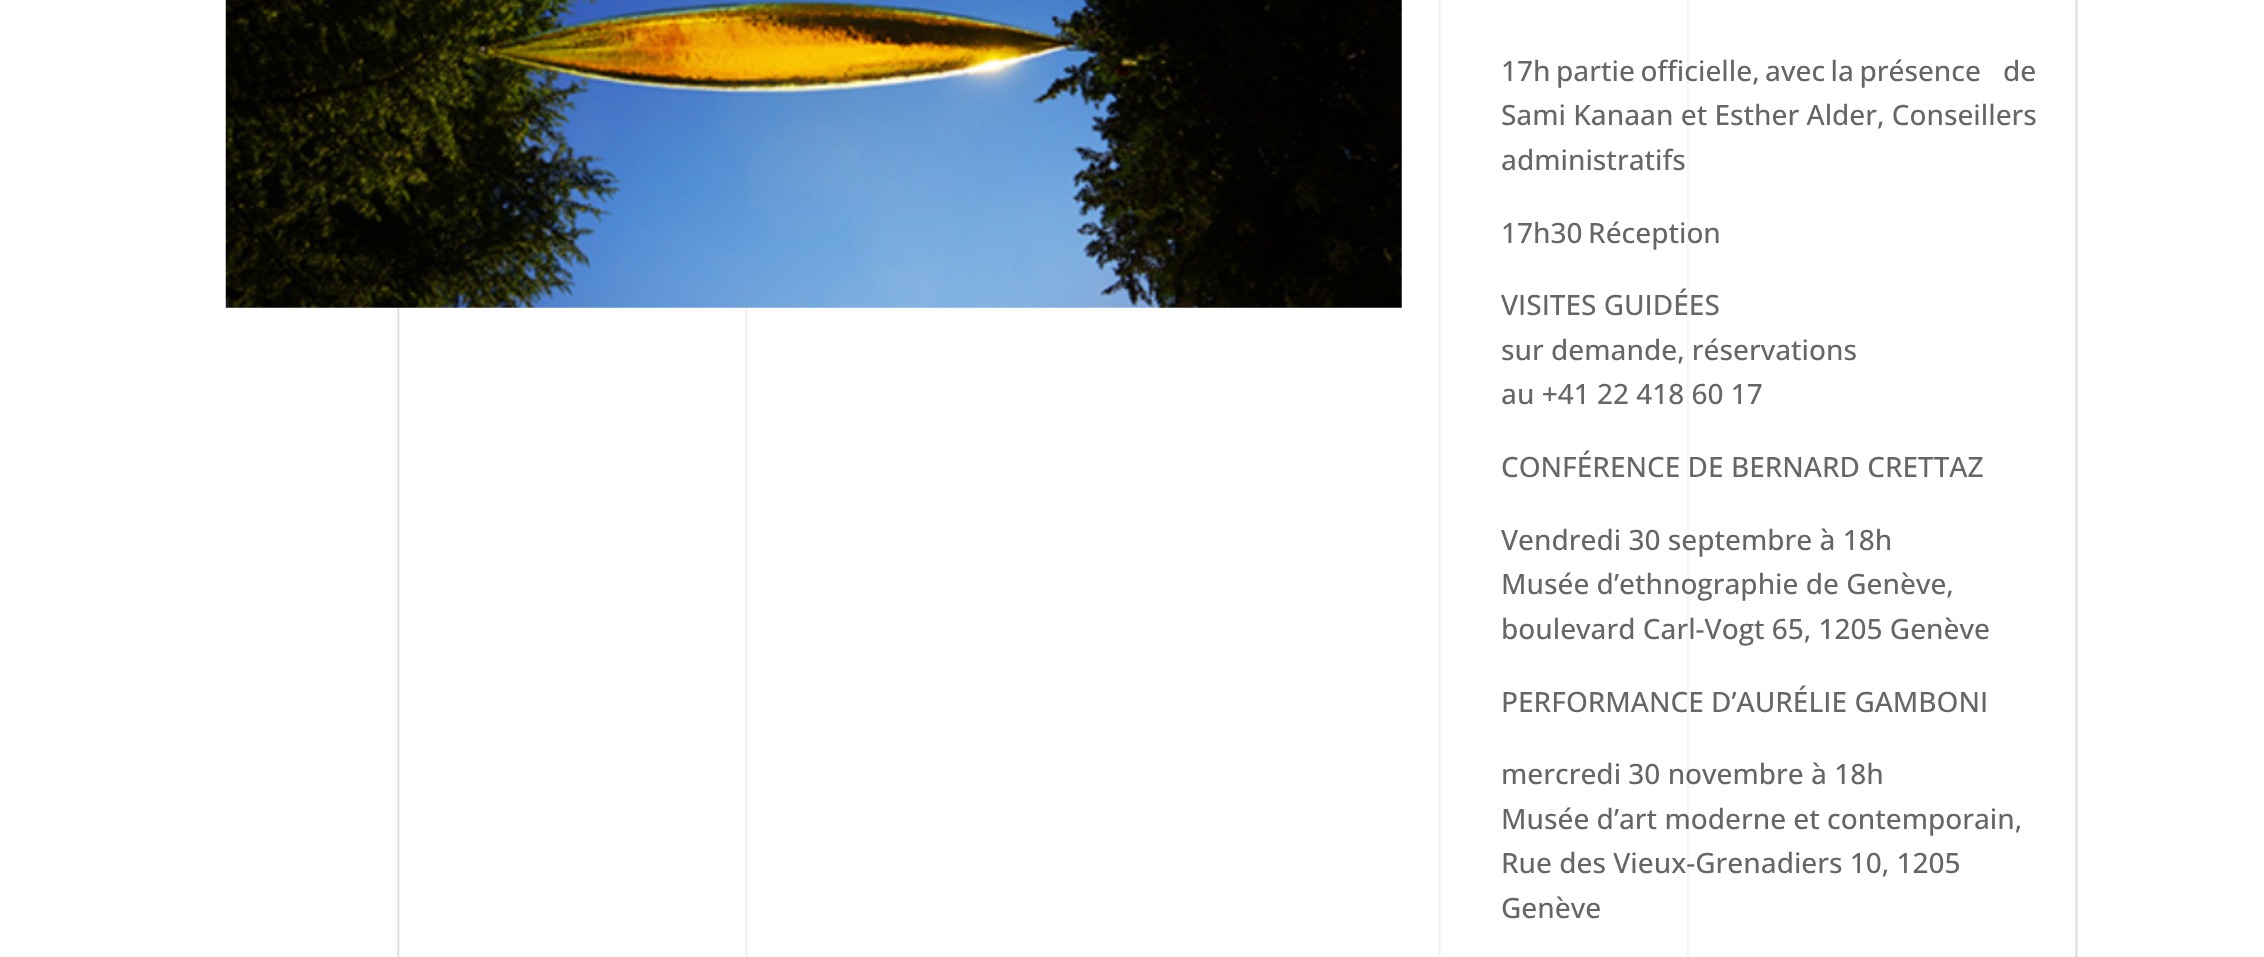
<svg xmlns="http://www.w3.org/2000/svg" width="2264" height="957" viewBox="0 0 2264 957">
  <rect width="100%" height="100%" fill="#ffffff"/>
  <image x="397" y="0" width="1681" height="957" href="img1.png"/>
  <image x="225" y="0" width="1177" height="308" href="img2.png"/>
  <text x="1501" y="81" word-spacing="-1.75" font-family="Open Sans" font-size="28" font-weight="500" fill="#666666">17h partie officielle, avec la présence</text>
  <text x="2003" y="81" word-spacing="-1.75" font-family="Open Sans" font-size="28" font-weight="500" fill="#666666">de</text>
  <text x="1501" y="125" font-family="Open Sans" font-size="28" font-weight="500" fill="#666666">Sami Kanaan et Esther Alder, Conseillers</text>
  <text x="1501" y="170" font-family="Open Sans" font-size="28" font-weight="500" fill="#666666">administratifs</text>
  <text x="1501" y="243" word-spacing="-1.75" font-family="Open Sans" font-size="28" font-weight="500" fill="#666666">17h30 Réception</text>
  <text x="1501" y="315" font-family="Open Sans" font-size="28" font-weight="500" fill="#666666">VISITES GUIDÉES</text>
  <text x="1501" y="360" font-family="Open Sans" font-size="28" font-weight="500" fill="#666666">sur demande, réservations</text>
  <text x="1501" y="404" font-family="Open Sans" font-size="28" font-weight="500" fill="#666666">au +41 22 418 60 17</text>
  <text x="1501" y="477" font-family="Open Sans" font-size="28" font-weight="500" fill="#666666">CONFÉRENCE DE BERNARD CRETTAZ</text>
  <text x="1501" y="550" font-family="Open Sans" font-size="28" font-weight="500" fill="#666666">Vendredi 30 septembre à 18h</text>
  <text x="1501" y="594" font-family="Open Sans" font-size="28" font-weight="500" fill="#666666">Musée d’ethnographie de Genève,</text>
  <text x="1501" y="639" font-family="Open Sans" font-size="28" font-weight="500" fill="#666666">boulevard Carl-Vogt 65, 1205 Genève</text>
  <text x="1501" y="712" font-family="Open Sans" font-size="28" font-weight="500" fill="#666666">PERFORMANCE D’AURÉLIE GAMBONI</text>
  <text x="1501" y="784" font-family="Open Sans" font-size="28" font-weight="500" fill="#666666">mercredi 30 novembre à 18h</text>
  <text x="1501" y="829" font-family="Open Sans" font-size="28" font-weight="500" fill="#666666">Musée d’art moderne et contemporain,</text>
  <text x="1501" y="873" font-family="Open Sans" font-size="28" font-weight="500" fill="#666666">Rue des Vieux-Grenadiers 10, 1205</text>
  <text x="1501" y="918" font-family="Open Sans" font-size="28" font-weight="500" fill="#666666">Genève</text>
</svg>
